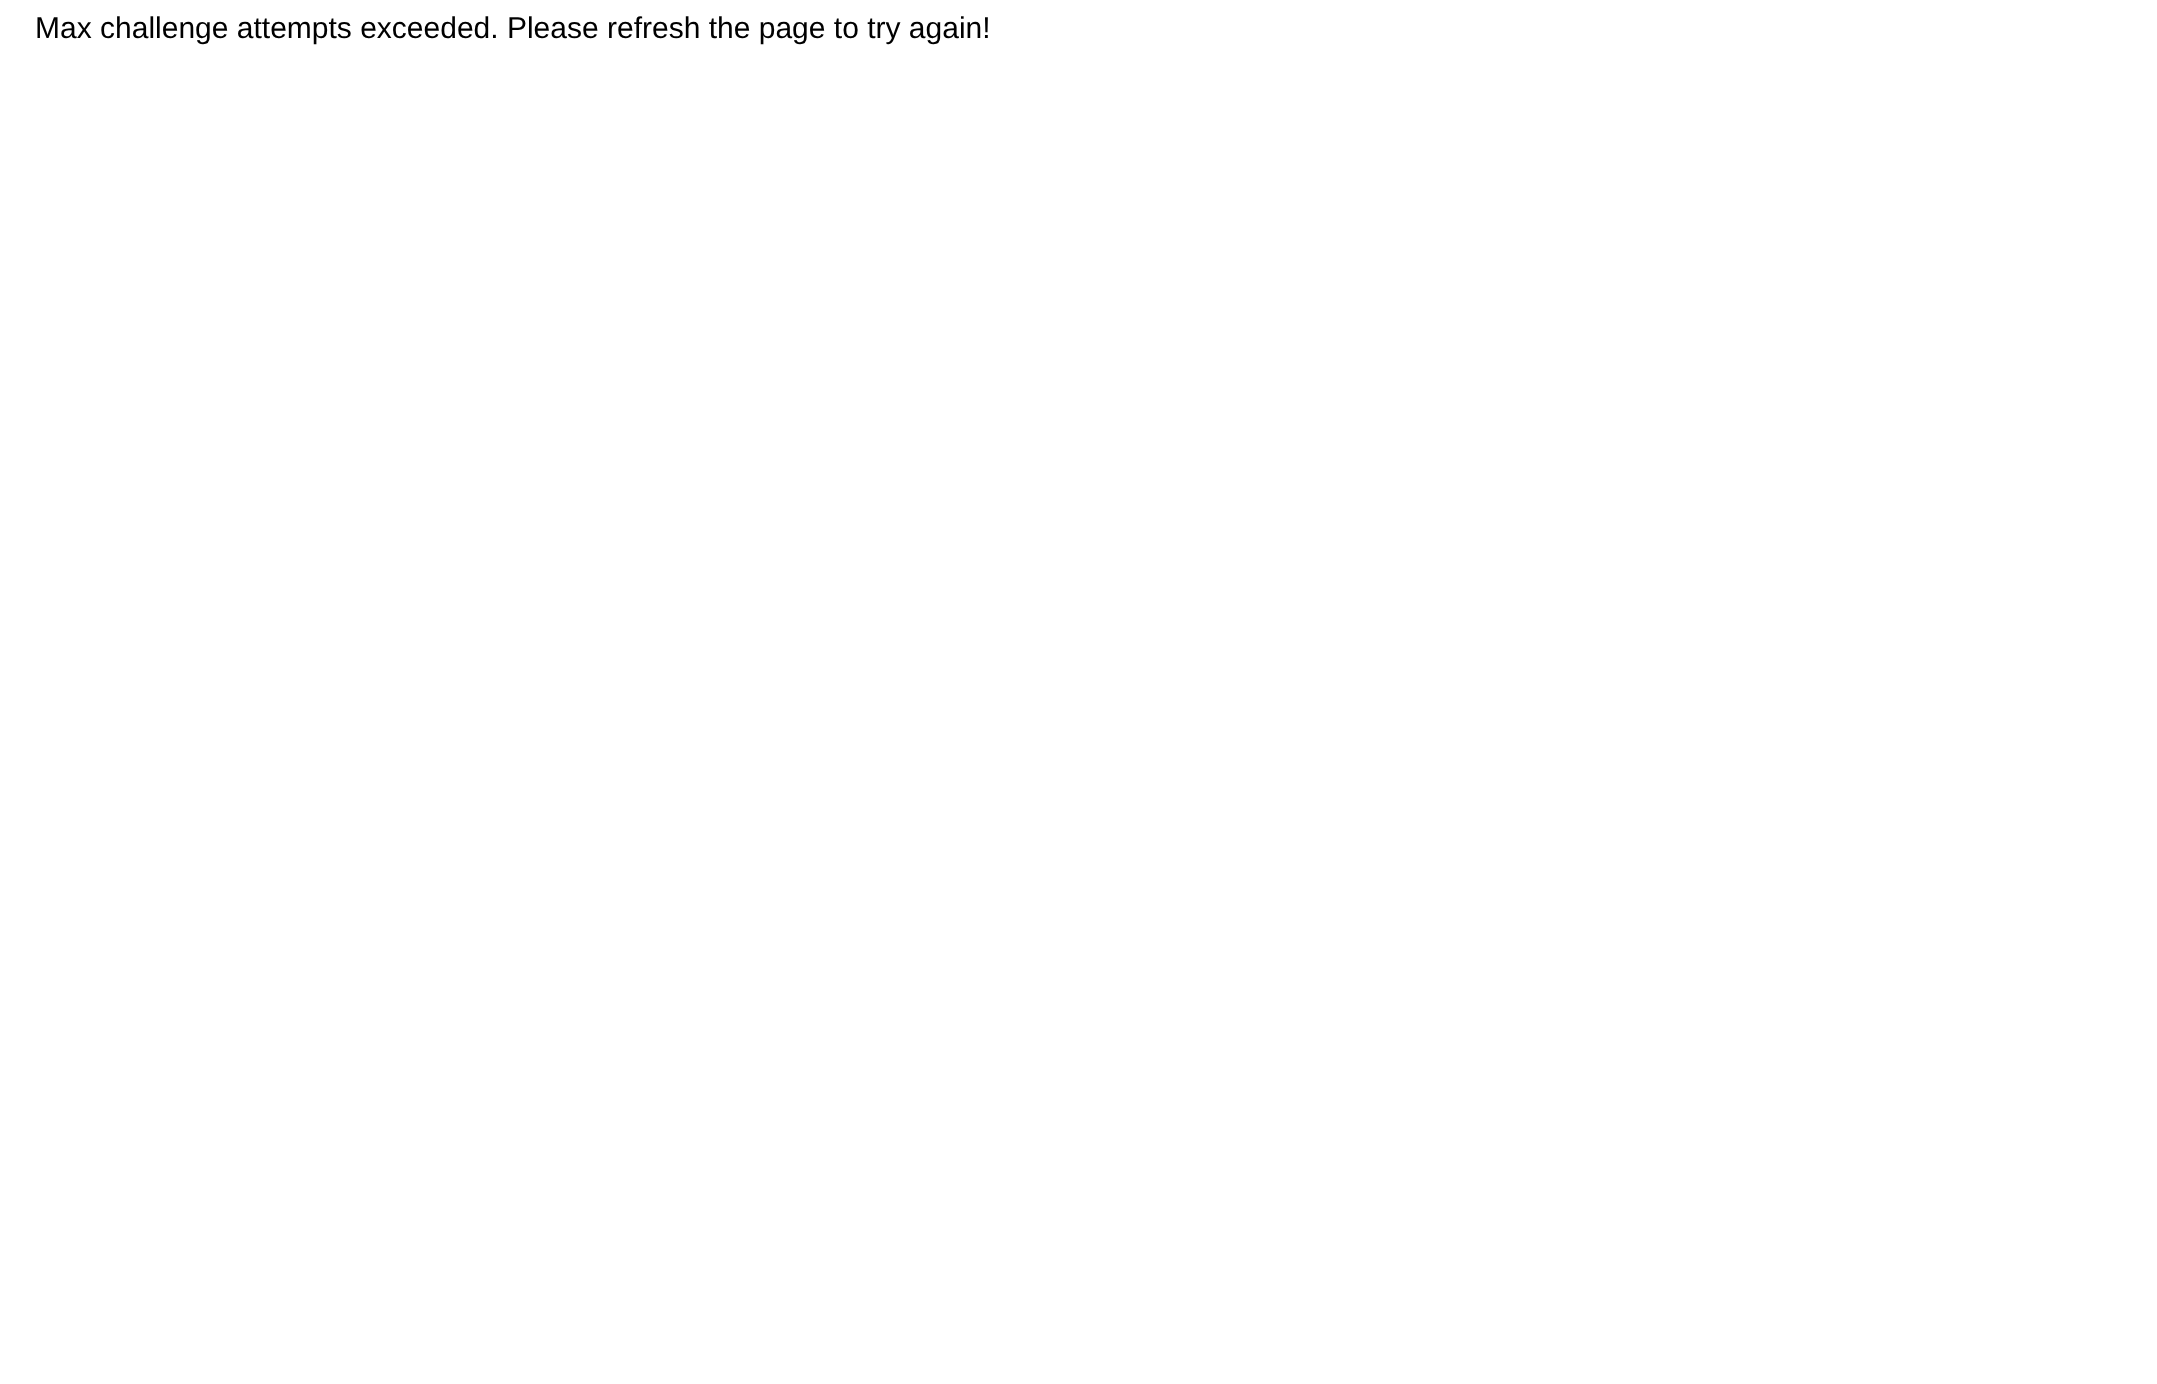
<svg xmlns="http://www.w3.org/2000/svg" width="2157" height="1384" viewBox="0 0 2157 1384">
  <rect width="100%" height="100%" fill="#ffffff"/>
  <text x="35" y="38" font-family="Liberation Sans" font-size="30" fill="#000000">Max challenge attempts exceeded. Please refresh the page to try again!</text>
</svg>
